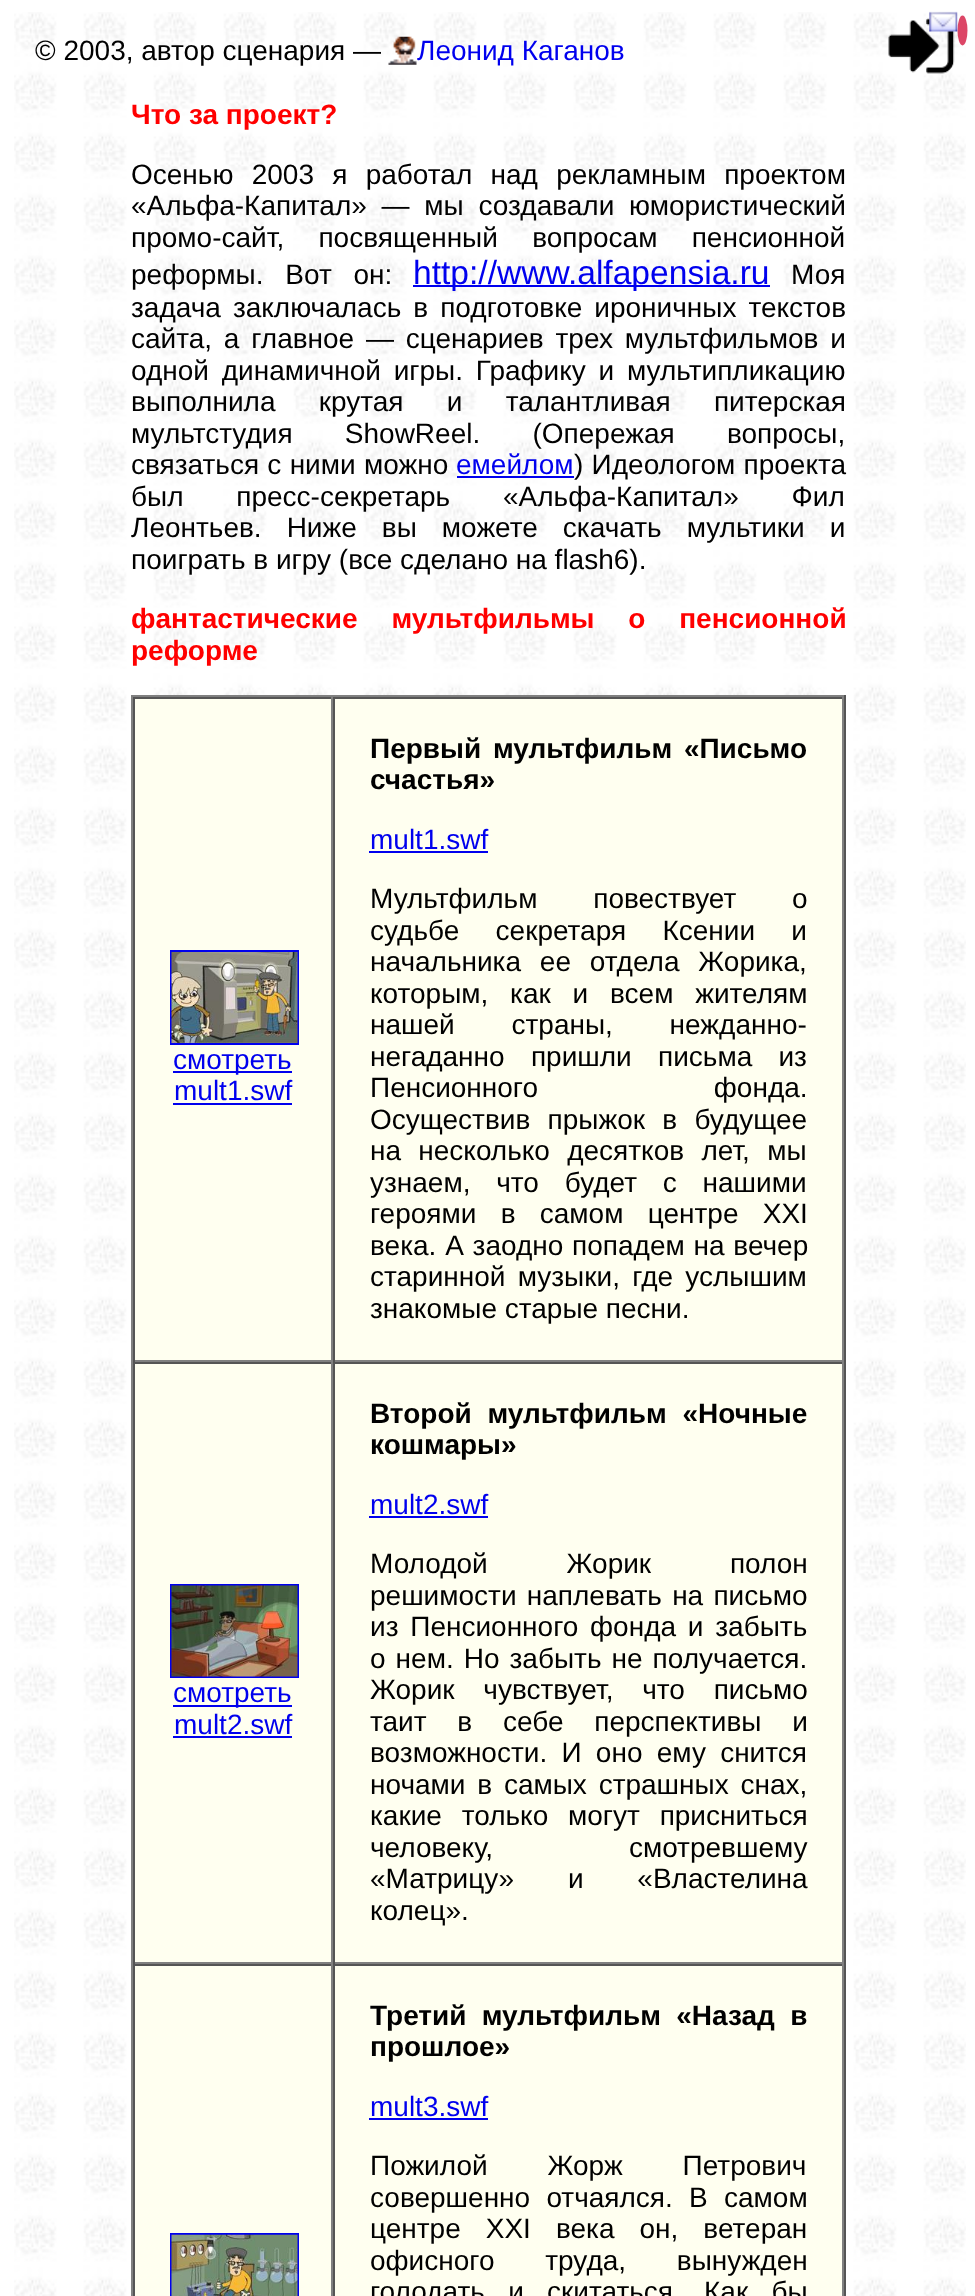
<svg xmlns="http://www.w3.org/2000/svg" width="975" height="2296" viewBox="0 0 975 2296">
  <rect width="100%" height="100%" fill="#ffffff"/>
  <image x="14" y="12" width="952" height="2284" href="img1.png"/>
  <text x="35" y="60" font-family="Liberation Sans" font-size="28" fill="#000000">© 2003, автор сценария —</text>
  <image x="388" y="36" width="29" height="29" href="img2.png"/>
  <text x="417" y="60" font-family="Liberation Sans" font-size="28" fill="#0000ee">Леонид Каганов</text>
  <text x="131" y="124" font-family="Liberation Sans" font-size="28" font-weight="bold" fill="#ff0000">Что за проект?</text>
  <text x="131" y="184" word-spacing="10.5" font-family="Liberation Sans" font-size="28" fill="#000000">Осенью 2003 я работал над рекламным проектом</text>
  <text x="131" y="215" word-spacing="7" font-family="Liberation Sans" font-size="28" fill="#000000">«Альфа-Капитал» — мы создавали юмористический</text>
  <text x="131" y="247" word-spacing="26.5" font-family="Liberation Sans" font-size="28" fill="#000000">промо-сайт, посвященный вопросам пенсионной</text>
  <text x="131" y="284" word-spacing="14" font-family="Liberation Sans" font-size="28" fill="#000000">реформы. Вот он:</text>
  <rect x="413" y="285" width="357" height="2" fill="#0000ee"/>
  <text x="413" y="284" font-family="Liberation Sans" font-size="33.6" fill="#0000ee">http://www.alfapensia.ru</text>
  <text x="791" y="284" font-family="Liberation Sans" font-size="28" fill="#000000">Моя</text>
  <text x="131" y="317" word-spacing="4.25" font-family="Liberation Sans" font-size="28" fill="#000000">задача заключалась в подготовке ироничных текстов</text>
  <text x="131" y="348" word-spacing="4" font-family="Liberation Sans" font-size="28" fill="#000000">сайта, а главное — сценариев трех мультфильмов и</text>
  <text x="131" y="380" word-spacing="5" font-family="Liberation Sans" font-size="28" fill="#000000">одной динамичной игры. Графику и мультипликацию</text>
  <text x="131" y="411" word-spacing="35.5" font-family="Liberation Sans" font-size="28" fill="#000000">выполнила крутая и талантливая питерская</text>
  <text x="131" y="443" word-spacing="44.5" font-family="Liberation Sans" font-size="28" fill="#000000">мультстудия ShowReel. (Опережая вопросы,</text>
  <text x="131" y="474" word-spacing="0.5" font-family="Liberation Sans" font-size="28" fill="#000000">связаться с ними можно</text>
  <text x="456" y="474" font-family="Liberation Sans" font-size="28" fill="#0000ee">емейлом</text>
  <rect x="457" y="476" width="117" height="2" fill="#0000ee"/>
  <text x="574" y="474" word-spacing="0.5" font-family="Liberation Sans" font-size="28" fill="#000000">) Идеологом проекта</text>
  <text x="131" y="506" word-spacing="45" font-family="Liberation Sans" font-size="28" fill="#000000">был пресс-секретарь «Альфа-Капитал» Фил</text>
  <text x="131" y="537" word-spacing="17.25" font-family="Liberation Sans" font-size="28" fill="#000000">Леонтьев. Ниже вы можете скачать мультики и</text>
  <text x="131" y="569" font-family="Liberation Sans" font-size="28" fill="#000000">поиграть в игру (все сделано на flash6).</text>
  <text x="131" y="628" word-spacing="26" font-family="Liberation Sans" font-size="28" font-weight="bold" fill="#ff0000">фантастические мультфильмы о пенсионной</text>
  <text x="131" y="660" font-family="Liberation Sans" font-size="28" font-weight="bold" fill="#ff0000">реформе</text>
  <rect x="135" y="699" width="707" height="1597" fill="#fffff0"/>
  <rect x="131" y="695" width="714" height="2" fill="#808080"/>
  <rect x="844" y="695" width="2" height="1601" fill="#555555"/>
  <rect x="131" y="695" width="2" height="1601" fill="#808080"/>
  <rect x="133" y="697" width="711" height="2" fill="#555555"/>
  <rect x="331" y="697" width="2" height="665" fill="#808080"/>
  <rect x="133" y="1360" width="200" height="2" fill="#808080"/>
  <rect x="133" y="697" width="2" height="665" fill="#555555"/>
  <rect x="171" y="951" width="127" height="93" fill="none" stroke="#0000ee" stroke-width="2"/>
  <image x="171" y="952" width="127" height="91" href="img3.png"/>
  <rect x="173" y="1071" width="119" height="2" fill="#0000ee"/>
  <text x="173" y="1069" font-family="Liberation Sans" font-size="28" fill="#0000ee">смотреть</text>
  <text x="174" y="1100" font-family="Liberation Sans" font-size="28" fill="#0000ee">mult1.swf</text>
  <rect x="173" y="1103" width="119" height="2" fill="#0000ee"/>
  <rect x="842" y="697" width="2" height="665" fill="#808080"/>
  <rect x="333" y="1360" width="511" height="2" fill="#808080"/>
  <rect x="333" y="697" width="2" height="665" fill="#555555"/>
  <text x="370" y="758" word-spacing="4" font-family="Liberation Sans" font-size="28" font-weight="bold" fill="#000000">Первый мультфильм «Письмо</text>
  <text x="370" y="789" font-family="Liberation Sans" font-size="28" font-weight="bold" fill="#000000">счастья»</text>
  <text x="370" y="849" font-family="Liberation Sans" font-size="28" fill="#0000ee">mult1.swf</text>
  <rect x="369" y="851" width="119" height="2" fill="#0000ee"/>
  <text x="370" y="908" word-spacing="48" font-family="Liberation Sans" font-size="28" fill="#000000">Мультфильм повествует о</text>
  <text x="370" y="940" word-spacing="28.5" font-family="Liberation Sans" font-size="28" fill="#000000">судьбе секретаря Ксении и</text>
  <text x="370" y="971" word-spacing="11" font-family="Liberation Sans" font-size="28" fill="#000000">начальника ее отдела Жорика,</text>
  <text x="370" y="1003" word-spacing="14" font-family="Liberation Sans" font-size="28" fill="#000000">которым, как и всем жителям</text>
  <text x="370" y="1034" word-spacing="49" font-family="Liberation Sans" font-size="28" fill="#000000">нашей страны, нежданно-</text>
  <text x="370" y="1066" word-spacing="18.5" font-family="Liberation Sans" font-size="28" fill="#000000">негаданно пришли письма из</text>
  <text x="370" y="1097" word-spacing="168" font-family="Liberation Sans" font-size="28" fill="#000000">Пенсионного фонда.</text>
  <text x="370" y="1129" word-spacing="9.5" font-family="Liberation Sans" font-size="28" fill="#000000">Осуществив прыжок в будущее</text>
  <text x="370" y="1160" word-spacing="9.5" font-family="Liberation Sans" font-size="28" fill="#000000">на несколько десятков лет, мы</text>
  <text x="370" y="1192" word-spacing="18" font-family="Liberation Sans" font-size="28" fill="#000000">узнаем, что будет с нашими</text>
  <text x="370" y="1223" word-spacing="16.5" font-family="Liberation Sans" font-size="28" fill="#000000">героями в самом центре XXI</text>
  <text x="370" y="1255" word-spacing="1" font-family="Liberation Sans" font-size="28" fill="#000000">века. А заодно попадем на вечер</text>
  <text x="370" y="1286" word-spacing="4.5" font-family="Liberation Sans" font-size="28" fill="#000000">старинной музыки, где услышим</text>
  <text x="370" y="1318" font-family="Liberation Sans" font-size="28" fill="#000000">знакомые старые песни.</text>
  <rect x="133" y="1362" width="711" height="2" fill="#555555"/>
  <rect x="331" y="1362" width="2" height="602" fill="#808080"/>
  <rect x="133" y="1962" width="200" height="2" fill="#808080"/>
  <rect x="133" y="1362" width="2" height="602" fill="#555555"/>
  <rect x="171" y="1585" width="127" height="92" fill="none" stroke="#0000ee" stroke-width="2"/>
  <image x="171" y="1585" width="127" height="92" href="img4.png"/>
  <rect x="173" y="1705" width="119" height="2" fill="#0000ee"/>
  <text x="173" y="1702" font-family="Liberation Sans" font-size="28" fill="#0000ee">смотреть</text>
  <text x="174" y="1734" font-family="Liberation Sans" font-size="28" fill="#0000ee">mult2.swf</text>
  <rect x="173" y="1736" width="119" height="2" fill="#0000ee"/>
  <rect x="842" y="1362" width="2" height="602" fill="#808080"/>
  <rect x="333" y="1962" width="511" height="2" fill="#808080"/>
  <rect x="333" y="1362" width="2" height="602" fill="#555555"/>
  <text x="370" y="1423" word-spacing="8" font-family="Liberation Sans" font-size="28" font-weight="bold" fill="#000000">Второй мультфильм «Ночные</text>
  <text x="370" y="1454" font-family="Liberation Sans" font-size="28" font-weight="bold" fill="#000000">кошмары»</text>
  <text x="370" y="1514" font-family="Liberation Sans" font-size="28" fill="#0000ee">mult2.swf</text>
  <rect x="369" y="1516" width="119" height="2" fill="#0000ee"/>
  <text x="370" y="1573" word-spacing="71" font-family="Liberation Sans" font-size="28" fill="#000000">Молодой Жорик полон</text>
  <text x="370" y="1605" word-spacing="2.5" font-family="Liberation Sans" font-size="28" fill="#000000">решимости наплевать на письмо</text>
  <text x="370" y="1636" word-spacing="4" font-family="Liberation Sans" font-size="28" fill="#000000">из Пенсионного фонда и забыть</text>
  <text x="370" y="1668" word-spacing="2.25" font-family="Liberation Sans" font-size="28" fill="#000000">о нем. Но забыть не получается.</text>
  <text x="370" y="1699" word-spacing="21" font-family="Liberation Sans" font-size="28" fill="#000000">Жорик чувствует, что письмо</text>
  <text x="370" y="1731" word-spacing="23" font-family="Liberation Sans" font-size="28" fill="#000000">таит в себе перспективы и</text>
  <text x="370" y="1762" word-spacing="6.5" font-family="Liberation Sans" font-size="28" fill="#000000">возможности. И оно ему снится</text>
  <text x="370" y="1794" word-spacing="4" font-family="Liberation Sans" font-size="28" fill="#000000">ночами в самых страшных снах,</text>
  <text x="370" y="1825" word-spacing="12" font-family="Liberation Sans" font-size="28" fill="#000000">какие только могут присниться</text>
  <text x="370" y="1857" word-spacing="128" font-family="Liberation Sans" font-size="28" fill="#000000">человеку, смотревшему</text>
  <text x="370" y="1888" word-spacing="46" font-family="Liberation Sans" font-size="28" fill="#000000">«Матрицу» и «Властелина</text>
  <text x="370" y="1920" font-family="Liberation Sans" font-size="28" fill="#000000">колец».</text>
  <rect x="133" y="1964" width="711" height="2" fill="#555555"/>
  <rect x="331" y="1964" width="2" height="332" fill="#808080"/>
  <rect x="133" y="1964" width="2" height="332" fill="#555555"/>
  <rect x="171" y="2234" width="127" height="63" fill="none" stroke="#0000ee" stroke-width="2"/>
  <image x="171" y="2234" width="127" height="62" href="img5.png"/>
  <rect x="842" y="1964" width="2" height="332" fill="#808080"/>
  <rect x="333" y="1964" width="2" height="332" fill="#555555"/>
  <text x="370" y="2025" word-spacing="7.5" font-family="Liberation Sans" font-size="28" font-weight="bold" fill="#000000">Третий мультфильм «Назад в</text>
  <text x="370" y="2056" font-family="Liberation Sans" font-size="28" font-weight="bold" fill="#000000">прошлое»</text>
  <text x="370" y="2116" font-family="Liberation Sans" font-size="28" fill="#0000ee">mult3.swf</text>
  <rect x="369" y="2118" width="119" height="2" fill="#0000ee"/>
  <text x="370" y="2175" word-spacing="52" font-family="Liberation Sans" font-size="28" fill="#000000">Пожилой Жорж Петрович</text>
  <text x="370" y="2207" word-spacing="8.5" font-family="Liberation Sans" font-size="28" fill="#000000">совершенно отчаялся. В самом</text>
  <text x="370" y="2238" word-spacing="17.25" font-family="Liberation Sans" font-size="28" fill="#000000">центре XXI века он, ветеран</text>
  <text x="370" y="2270" word-spacing="43" font-family="Liberation Sans" font-size="28" fill="#000000">офисного труда, вынужден</text>
  <text x="370" y="2301" word-spacing="15.5" font-family="Liberation Sans" font-size="28" fill="#000000">голодать и скитаться. Как бы</text>
  <ellipse cx="962.5" cy="30.5" rx="5" ry="15" fill="#dc4666"/>
  <image x="888" y="18" width="67" height="56" href="img7.png"/>
  <image x="929" y="11" width="29" height="21" href="img6.png"/>
</svg>
